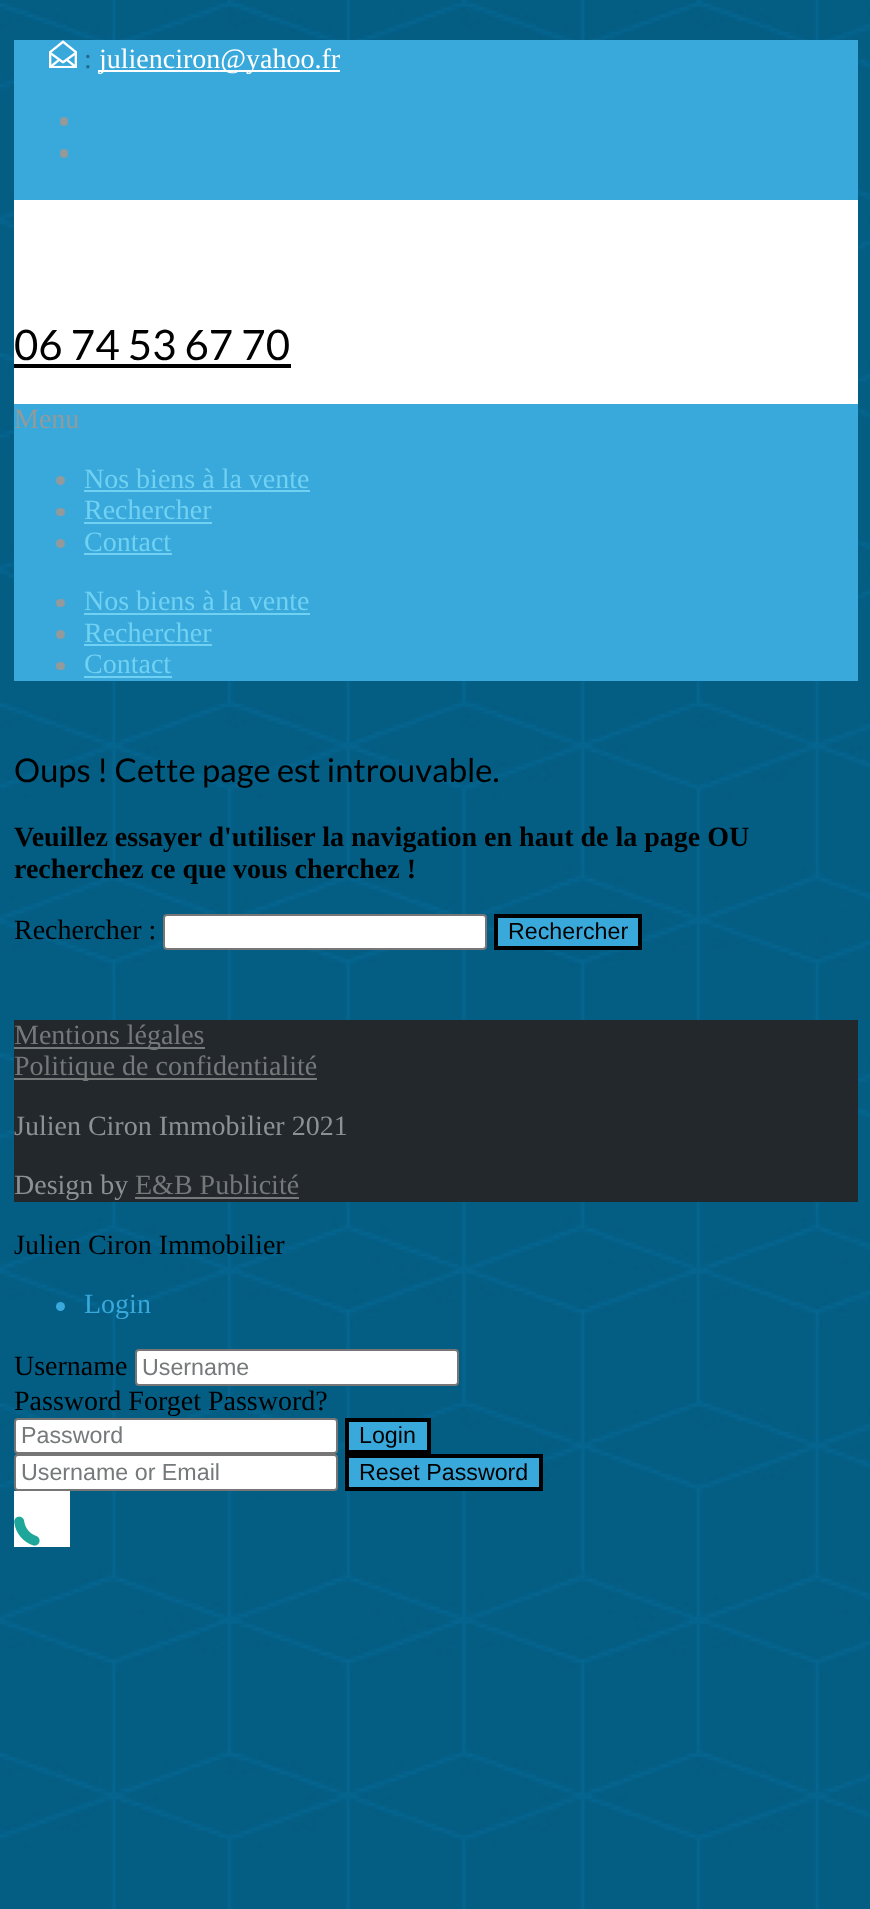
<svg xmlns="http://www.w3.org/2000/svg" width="870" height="1909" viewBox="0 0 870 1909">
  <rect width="100%" height="100%" fill="#ffffff"/>
  <image x="0" y="0" width="870" height="1909" href="img1.png"/>
  <rect x="14" y="200" width="844" height="204" fill="#ffffff"/>
  <rect x="14" y="40" width="844" height="160" fill="#39a9dc"/>
  <image x="49" y="40" width="28" height="28" href="img2.png"/>
  <text x="84" y="68" font-family="Liberation Serif" font-size="28" fill="#236a8a">:</text>
  <rect x="98" y="70" width="242" height="2" fill="#ffffff"/>
  <text x="99" y="68" font-family="Liberation Serif" font-size="28" fill="#ffffff">julienciron@yahoo.fr</text>
  <rect x="60" y="117" width="8" height="9" rx="4" fill="#929a9b"/>
  <rect x="60" y="149" width="8" height="9" rx="4" fill="#929a9b"/>
  <text x="14" y="360" font-family="Lato" font-size="42" fill="#000000">06 74 53 67 70</text>
  <rect x="14" y="364" width="277" height="4" fill="#000000"/>
  <rect x="14" y="404" width="844" height="277" fill="#39a9dc"/>
  <text x="14" y="428" font-family="Liberation Serif" font-size="28" fill="#929a9b">Menu</text>
  <circle cx="60.5" cy="480.5" r="4.5" fill="#929a9b"/>
  <text x="84" y="488" font-family="Liberation Serif" font-size="28" fill="#70d1f2">Nos biens à la vente</text>
  <rect x="84" y="490" width="226" height="2" fill="#70d1f2"/>
  <rect x="56" y="508" width="9" height="8" rx="4" fill="#929a9b"/>
  <text x="84" y="519" font-family="Liberation Serif" font-size="28" fill="#70d1f2">Rechercher</text>
  <rect x="84" y="522" width="128" height="2" fill="#70d1f2"/>
  <circle cx="60.5" cy="543.5" r="4.5" fill="#929a9b"/>
  <text x="84" y="551" font-family="Liberation Serif" font-size="28" fill="#70d1f2">Contact</text>
  <rect x="84" y="553" width="88" height="2" fill="#70d1f2"/>
  <rect x="56" y="599" width="9" height="8" rx="4" fill="#929a9b"/>
  <text x="84" y="610" font-family="Liberation Serif" font-size="28" fill="#70d1f2">Nos biens à la vente</text>
  <rect x="84" y="613" width="226" height="2" fill="#70d1f2"/>
  <circle cx="60.5" cy="634.5" r="4.5" fill="#929a9b"/>
  <text x="84" y="642" font-family="Liberation Serif" font-size="28" fill="#70d1f2">Rechercher</text>
  <rect x="84" y="644" width="128" height="2" fill="#70d1f2"/>
  <rect x="56" y="662" width="9" height="8" rx="4" fill="#929a9b"/>
  <text x="84" y="673" font-family="Liberation Serif" font-size="28" fill="#70d1f2">Contact</text>
  <rect x="84" y="676" width="88" height="2" fill="#70d1f2"/>
  <text x="14" y="782" font-family="Lato" font-size="32.75" fill="#000000">Oups ! Cette page est introuvable.</text>
  <text x="14" y="846" font-family="Liberation Serif" font-size="28" font-weight="bold" fill="#000000">Veuillez essayer d'utiliser la navigation en haut de la page OU</text>
  <text x="14" y="878" font-family="Liberation Serif" font-size="28" font-weight="bold" fill="#000000">recherchez ce que vous cherchez !</text>
  <text x="14" y="939" font-family="Liberation Serif" font-size="28" fill="#000000">Rechercher :</text>
  <rect x="164" y="915" width="322" height="34" rx="3" fill="#ffffff" stroke="#767676" stroke-width="2"/>
  <rect x="496" y="916" width="144" height="32" fill="#39a9dc" stroke="#000000" stroke-width="4"/>
  <text x="508" y="939" font-family="Liberation Sans" font-size="23.25" fill="#000000">Rechercher</text>
  <rect x="14" y="1020" width="844" height="182" fill="#23282d"/>
  <rect x="14" y="1047" width="191" height="2" fill="#75797a"/>
  <text x="14" y="1044" font-family="Liberation Serif" font-size="28" fill="#75797a">Mentions légales</text>
  <rect x="14" y="1078" width="303" height="2" fill="#75797a"/>
  <text x="14" y="1075" font-family="Liberation Serif" font-size="28" fill="#75797a">Politique de confidentialité</text>
  <text x="14" y="1135" font-family="Liberation Serif" font-size="28" fill="#8b9293">Julien Ciron Immobilier 2021</text>
  <text x="14" y="1194" font-family="Liberation Serif" font-size="28" fill="#8b9293">Design by</text>
  <text x="135" y="1194" font-family="Liberation Serif" font-size="28" fill="#75797a">E&amp;B Publicité</text>
  <rect x="135" y="1197" width="164" height="2" fill="#75797a"/>
  <text x="14" y="1254" font-family="Liberation Serif" font-size="28" fill="#000000">Julien Ciron Immobilier</text>
  <circle cx="60.5" cy="1306.5" r="4.5" fill="#39a9dc"/>
  <text x="84" y="1313" font-family="Liberation Serif" font-size="28" fill="#39a9dc">Login</text>
  <text x="14" y="1375" font-family="Liberation Serif" font-size="28" fill="#000000">Username</text>
  <rect x="136" y="1350" width="322" height="35" rx="3" fill="#ffffff" stroke="#767676" stroke-width="2"/>
  <text x="142" y="1375" font-family="Liberation Sans" font-size="23.25" fill="#75797a">Username</text>
  <text x="14" y="1410" font-family="Liberation Serif" font-size="28" fill="#000000">Password Forget Password?</text>
  <rect x="15" y="1419" width="322" height="34" rx="3" fill="#ffffff" stroke="#767676" stroke-width="2"/>
  <text x="21" y="1443" font-family="Liberation Sans" font-size="23.25" fill="#75797a">Password</text>
  <rect x="347" y="1420" width="82" height="32" fill="#39a9dc" stroke="#000000" stroke-width="4"/>
  <text x="359" y="1443" font-family="Liberation Sans" font-size="23.25" fill="#000000">Login</text>
  <rect x="15" y="1455" width="322" height="35" rx="3" fill="#ffffff" stroke="#767676" stroke-width="2"/>
  <text x="21" y="1480" font-family="Liberation Sans" font-size="23.25" fill="#75797a">Username or Email</text>
  <rect x="347" y="1456" width="194" height="33" fill="#39a9dc" stroke="#000000" stroke-width="4"/>
  <text x="359" y="1480" font-family="Liberation Sans" font-size="23.25" fill="#000000">Reset Password</text>
  <image x="14" y="1491" width="56" height="56" href="img3.png"/>
</svg>
